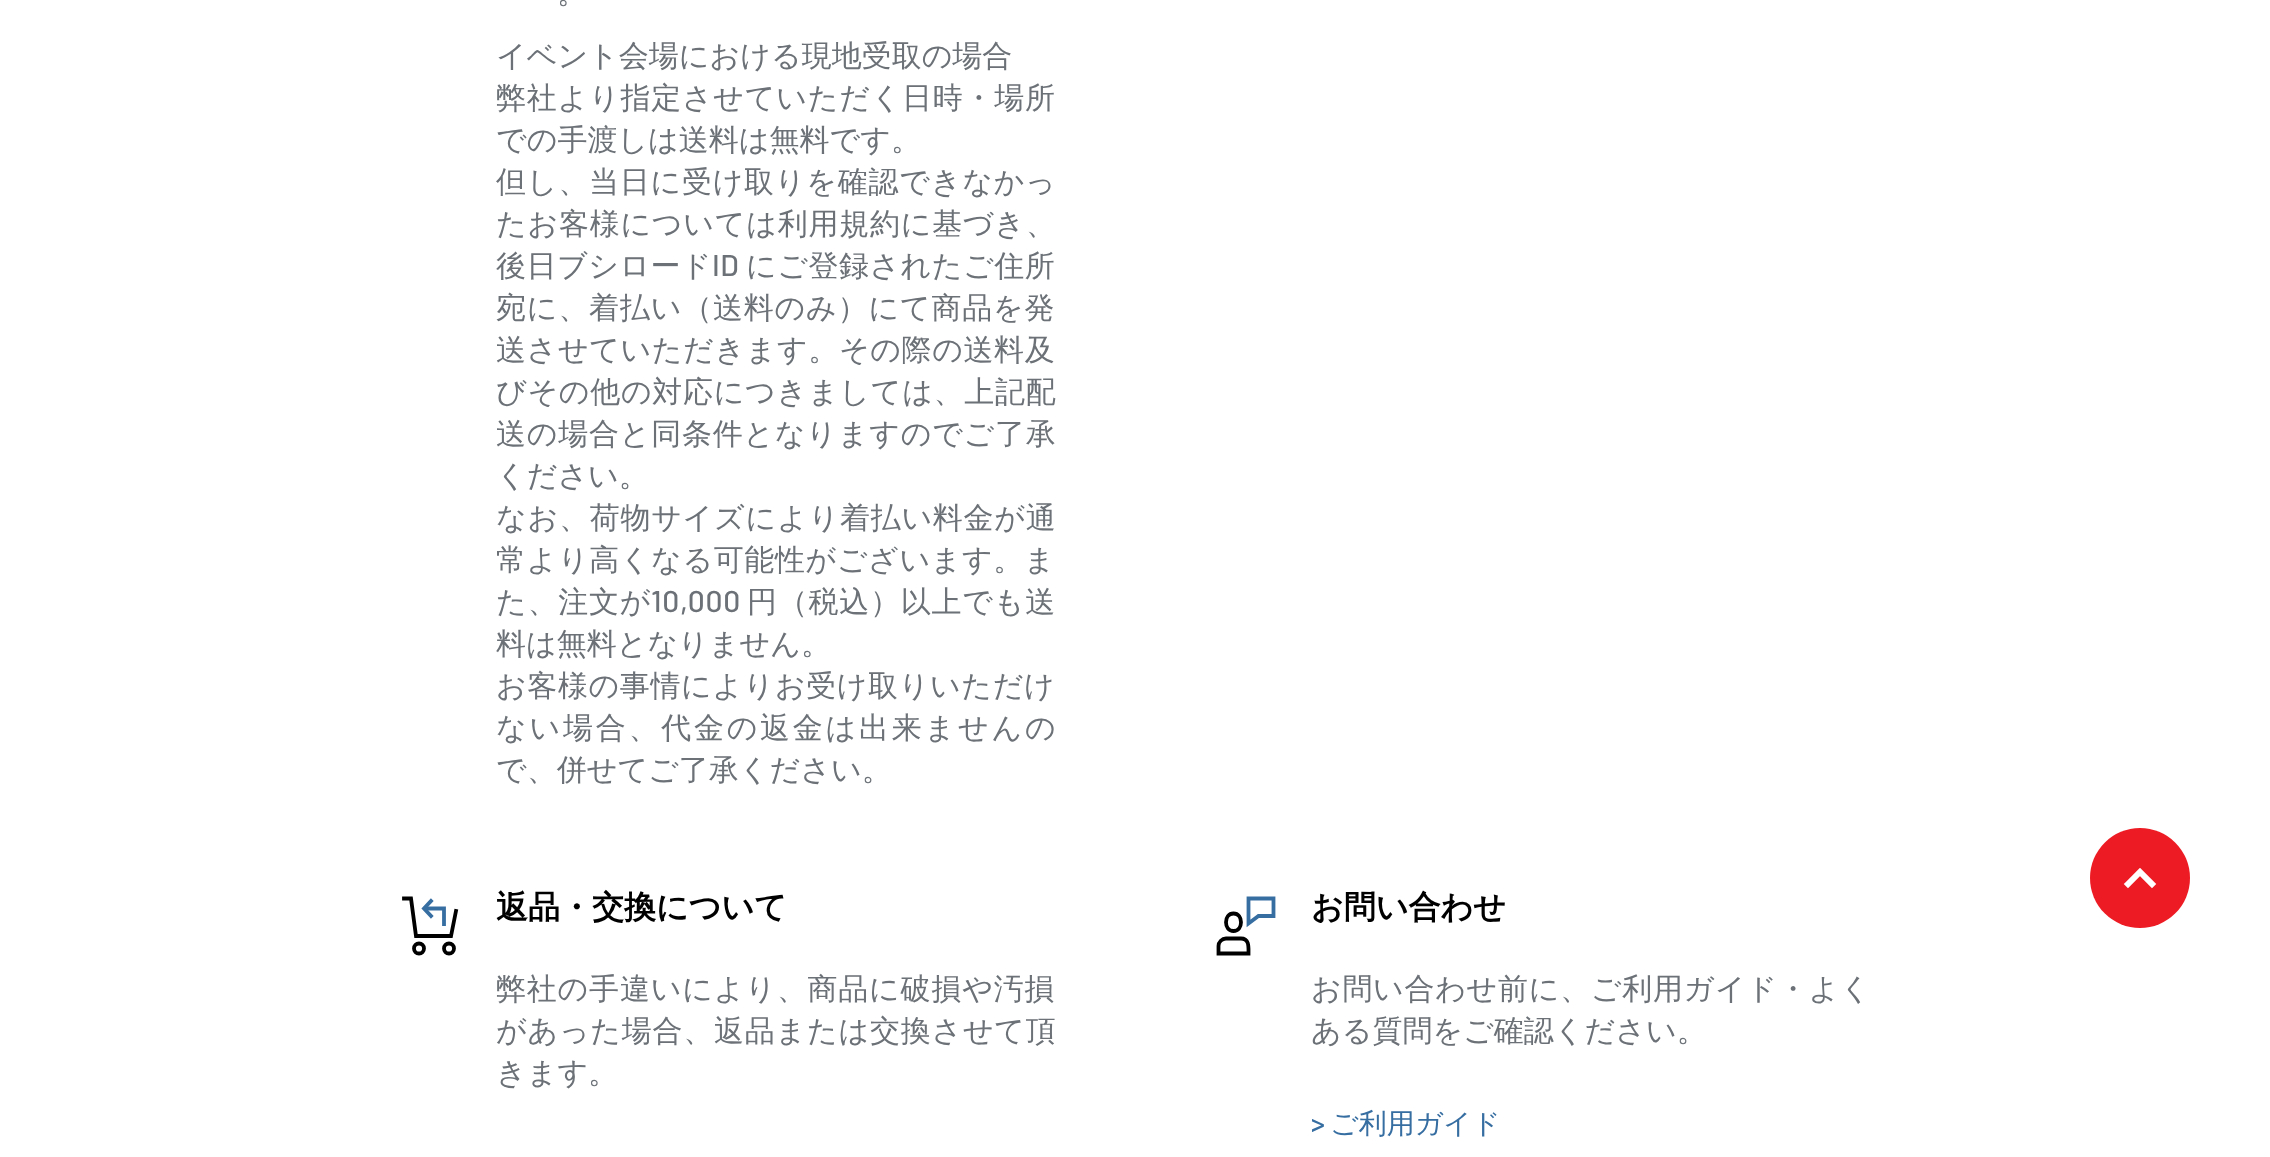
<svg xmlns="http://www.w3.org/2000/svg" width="2270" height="1157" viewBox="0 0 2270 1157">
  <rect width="100%" height="100%" fill="#ffffff"/>
  <text x="557" y="3" font-family="WenQuanYi Zen Hei" font-size="30" font-weight="500" fill="#6b7177">。</text>
  <text x="496" y="66" font-family="WenQuanYi Zen Hei" font-size="30" font-weight="500" fill="#6b7177">イベント会場における現地受取の場合</text>
  <text x="496" y="108" font-family="WenQuanYi Zen Hei" font-size="30" font-weight="500" letter-spacing="0.75" fill="#6b7177">弊社より指定させていただく日時・場所</text>
  <text x="496" y="150" font-family="WenQuanYi Zen Hei" font-size="30" font-weight="500" fill="#6b7177">での手渡しは送料は無料です。</text>
  <text x="496" y="192" font-family="WenQuanYi Zen Hei" font-size="30" font-weight="500" letter-spacing="0.75" fill="#6b7177">但し、当日に受け取りを確認できなかっ</text>
  <text x="496" y="234" font-family="WenQuanYi Zen Hei" font-size="30" font-weight="500" letter-spacing="0.75" fill="#6b7177">たお客様については利用規約に基づき、</text>
  <text x="496" y="276" font-family="WenQuanYi Zen Hei" font-size="30" font-weight="500" letter-spacing="0.5" fill="#6b7177">後日ブシロード</text>
  <text x="712" y="276" font-family="Barlow" font-size="30" font-weight="500" letter-spacing="0.5" fill="#6b7177">ID</text>
  <text x="746" y="276" font-family="WenQuanYi Zen Hei" font-size="30" font-weight="500" letter-spacing="0.5" fill="#6b7177">にご登録されたご住所</text>
  <text x="496" y="318" font-family="WenQuanYi Zen Hei" font-size="30" font-weight="500" letter-spacing="0.8" fill="#6b7177">宛に、着払い（送料のみ）にて商品を発</text>
  <text x="496" y="360" font-family="WenQuanYi Zen Hei" font-size="30" font-weight="500" letter-spacing="0.6" fill="#6b7177">送させていただきます。その際の送料及</text>
  <text x="496" y="402" font-family="WenQuanYi Zen Hei" font-size="30" font-weight="500" letter-spacing="0.7" fill="#6b7177">びその他の対応につきましては、上記配</text>
  <text x="496" y="444" font-family="WenQuanYi Zen Hei" font-size="30" font-weight="500" letter-spacing="0.75" fill="#6b7177">送の場合と同条件となりますのでご了承</text>
  <text x="496" y="486" font-family="WenQuanYi Zen Hei" font-size="30" font-weight="500" fill="#6b7177">ください。</text>
  <text x="496" y="528" font-family="WenQuanYi Zen Hei" font-size="30" font-weight="500" letter-spacing="0.75" fill="#6b7177">なお、荷物サイズにより着払い料金が通</text>
  <text x="496" y="570" font-family="WenQuanYi Zen Hei" font-size="30" font-weight="500" letter-spacing="0.6" fill="#6b7177">常より高くなる可能性がございます。ま</text>
  <text x="496" y="612" font-family="WenQuanYi Zen Hei" font-size="30" font-weight="500" letter-spacing="0.75" fill="#6b7177">た、注文が</text>
  <text x="651" y="612" font-family="Barlow" font-size="30" font-weight="500" letter-spacing="0.75" fill="#6b7177">10,000</text>
  <text x="747" y="612" font-family="WenQuanYi Zen Hei" font-size="30" font-weight="500" letter-spacing="0.75" fill="#6b7177">円（税込）以上でも送</text>
  <text x="496" y="654" font-family="WenQuanYi Zen Hei" font-size="30" font-weight="500" fill="#6b7177">料は無料となりません。</text>
  <text x="496" y="696" font-family="WenQuanYi Zen Hei" font-size="30" font-weight="500" letter-spacing="0.6" fill="#6b7177">お客様の事情によりお受け取りいただけ</text>
  <text x="496" y="738" font-family="WenQuanYi Zen Hei" font-size="30" font-weight="500" letter-spacing="2.75" fill="#6b7177">ない場合、代金の返金は出来ませんの</text>
  <text x="496" y="780" font-family="WenQuanYi Zen Hei" font-size="30" font-weight="500" fill="#6b7177">で、併せてご了承ください。</text>
  <path d="M424 908.5H444V926" fill="none" stroke="#376ea2" stroke-width="3.8"/>
  <path d="M431 916L424 908.5L431 901" fill="none" stroke="#376ea2" stroke-width="3.8" stroke-linecap="square"/>
  <path d="M456 911L451 936H416L411 898.5H404" fill="none" stroke="#000000" stroke-width="3.8" stroke-linecap="square"/>
  <circle cx="419" cy="948.5" r="5" fill="none" stroke="#000000" stroke-width="3.8"/>
  <circle cx="449" cy="948.5" r="5" fill="none" stroke="#000000" stroke-width="3.8"/>
  <text x="496" y="918" font-family="WenQuanYi Zen Hei" font-size="32" font-weight="bold" fill="#000000">返品・交換について</text>
  <text x="496" y="999" font-family="WenQuanYi Zen Hei" font-size="30" font-weight="500" letter-spacing="0.8" fill="#6b7177">弊社の手違いにより、商品に破損や汚損</text>
  <text x="496" y="1041" font-family="WenQuanYi Zen Hei" font-size="30" font-weight="500" letter-spacing="0.75" fill="#6b7177">があった場合、返品または交換させて頂</text>
  <text x="496" y="1083" font-family="WenQuanYi Zen Hei" font-size="30" font-weight="500" fill="#6b7177">きます。</text>
  <path d="M1241 938.5H1226C1222 938.5 1218.5 942 1218.5 946V953.5H1248.5C1248.5 947.5 1249.5 938.5 1241 938.5ZM1233.5 931C1223.5 931 1223.5 913.5 1233.5 913.5C1243.5 913.5 1243.5 931 1233.5 931Z" fill="none" stroke="#000000" stroke-width="3.8" stroke-linecap="square"/>
  <path d="M1248.5 898.5V923.5L1258.5 916H1273.5V898.5Z" fill="none" stroke="#376ea2" stroke-width="3.8" stroke-linecap="square"/>
  <text x="1311" y="918" font-family="WenQuanYi Zen Hei" font-size="32" font-weight="bold" fill="#000000">お問い合わせ</text>
  <text x="1311" y="999" font-family="WenQuanYi Zen Hei" font-size="30" font-weight="500" letter-spacing="0.7" fill="#6b7177">お問い合わせ前に、ご利用ガイド・よく</text>
  <text x="1311" y="1041" font-family="WenQuanYi Zen Hei" font-size="30" font-weight="500" fill="#6b7177">ある質問をご確認ください。</text>
  <text x="1311" y="1133" font-family="Barlow" font-size="28" font-weight="500" fill="#376ea2">&gt;</text>
  <text x="1330" y="1133" font-family="WenQuanYi Zen Hei" font-size="28" font-weight="500" fill="#376ea2">ご利用ガイド</text>
  <circle cx="2140" cy="878" r="50" fill="#ed1c24"/>
  <path d="M2128 884L2140 872L2152 884" fill="none" stroke="#ffffff" stroke-width="6" stroke-linecap="square"/>
</svg>
